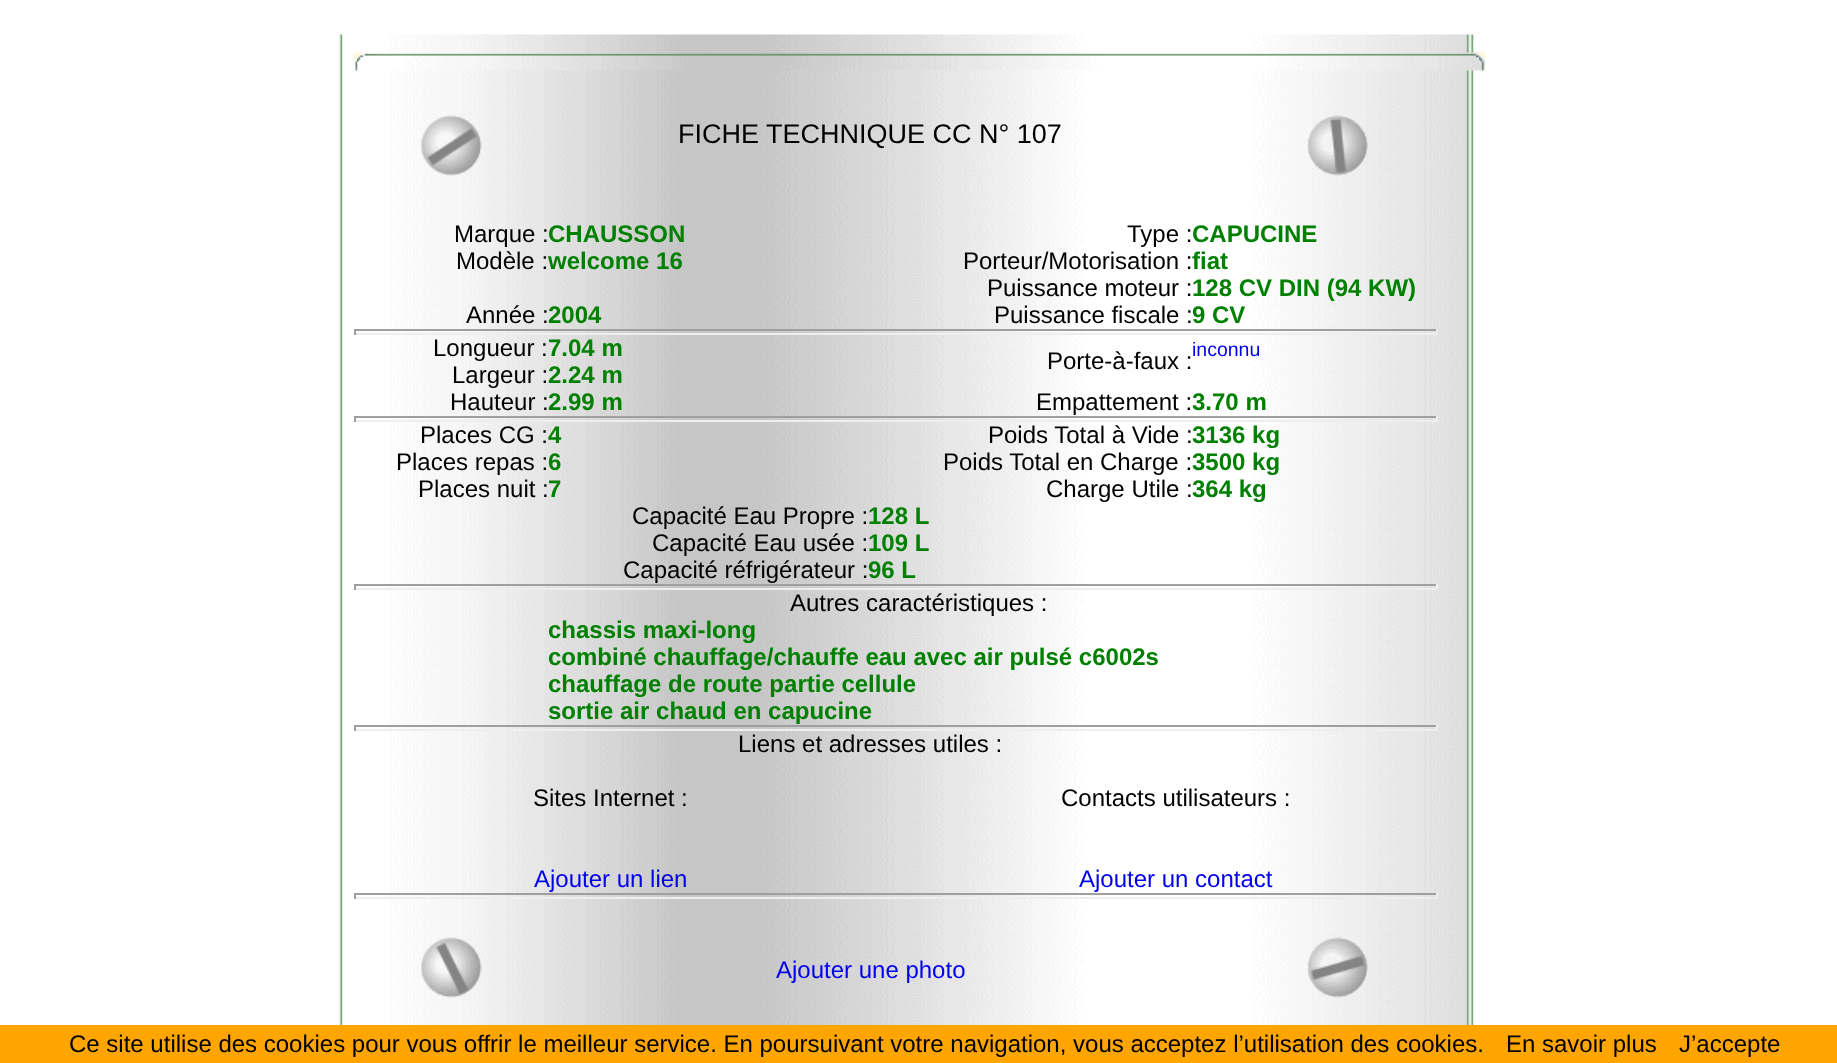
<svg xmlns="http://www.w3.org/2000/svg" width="1837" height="1063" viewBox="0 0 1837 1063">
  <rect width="100%" height="100%" fill="#ffffff"/>
  <image x="339" y="34" width="1135" height="991" href="img1.png"/>
  <image x="354" y="52" width="1131" height="19" href="img2.png"/>
  <image x="420" y="115" width="62" height="61" href="img3.png"/>
  <text x="678" y="143" font-family="Liberation Sans" font-size="27" fill="#000000">FICHE TECHNIQUE CC N° 107</text>
  <image x="1307" y="115" width="62" height="61" href="img4.png"/>
  <text x="454" y="242" font-family="Liberation Sans" font-size="24" fill="#000000">Marque :</text>
  <text x="548" y="242" font-family="Liberation Sans" font-size="24" font-weight="bold" fill="#008000">CHAUSSON</text>
  <text x="1127" y="242" font-family="Liberation Sans" font-size="24" fill="#000000">Type :</text>
  <text x="1192" y="242" font-family="Liberation Sans" font-size="24" font-weight="bold" fill="#008000">CAPUCINE</text>
  <text x="456" y="269" font-family="Liberation Sans" font-size="24" fill="#000000">Modèle :</text>
  <text x="548" y="269" font-family="Liberation Sans" font-size="24" font-weight="bold" fill="#008000">welcome 16</text>
  <text x="963" y="269" font-family="Liberation Sans" font-size="24" fill="#000000">Porteur/Motorisation :</text>
  <text x="1192" y="269" font-family="Liberation Sans" font-size="24" font-weight="bold" fill="#008000">fiat</text>
  <text x="987" y="296" font-family="Liberation Sans" font-size="24" fill="#000000">Puissance moteur :</text>
  <text x="1192" y="296" font-family="Liberation Sans" font-size="24" font-weight="bold" fill="#008000">128 CV DIN (94 KW)</text>
  <text x="466" y="323" font-family="Liberation Sans" font-size="24" fill="#000000">Année :</text>
  <text x="548" y="323" font-family="Liberation Sans" font-size="24" font-weight="bold" fill="#008000">2004</text>
  <text x="994" y="323" font-family="Liberation Sans" font-size="24" fill="#000000">Puissance fiscale :</text>
  <text x="1192" y="323" font-family="Liberation Sans" font-size="24" font-weight="bold" fill="#008000">9 CV</text>
  <rect x="354" y="329" width="1083" height="2" fill="#9f9f9f"/>
  <rect x="1436" y="329" width="2" height="6" fill="#eeeeee"/>
  <rect x="354" y="333" width="1083" height="2" fill="#eeeeee"/>
  <rect x="354" y="329" width="2" height="6" fill="#9f9f9f"/>
  <text x="433" y="356" font-family="Liberation Sans" font-size="24" fill="#000000">Longueur :</text>
  <text x="548" y="356" font-family="Liberation Sans" font-size="24" font-weight="bold" fill="#008000">7.04 m</text>
  <text x="1192" y="356" font-family="Liberation Sans" font-size="19.5" fill="#0000ee">inconnu</text>
  <text x="1047" y="369" font-family="Liberation Sans" font-size="24" fill="#000000">Porte-à-faux :</text>
  <text x="452" y="383" font-family="Liberation Sans" font-size="24" fill="#000000">Largeur :</text>
  <text x="548" y="383" font-family="Liberation Sans" font-size="24" font-weight="bold" fill="#008000">2.24 m</text>
  <text x="450" y="410" font-family="Liberation Sans" font-size="24" fill="#000000">Hauteur :</text>
  <text x="548" y="410" font-family="Liberation Sans" font-size="24" font-weight="bold" fill="#008000">2.99 m</text>
  <text x="1036" y="410" font-family="Liberation Sans" font-size="24" fill="#000000">Empattement :</text>
  <text x="1192" y="410" font-family="Liberation Sans" font-size="24" font-weight="bold" fill="#008000">3.70 m</text>
  <rect x="354" y="416" width="1083" height="2" fill="#9f9f9f"/>
  <rect x="1436" y="416" width="2" height="6" fill="#eeeeee"/>
  <rect x="354" y="420" width="1083" height="2" fill="#eeeeee"/>
  <rect x="354" y="416" width="2" height="6" fill="#9f9f9f"/>
  <text x="420" y="443" font-family="Liberation Sans" font-size="24" fill="#000000">Places CG :</text>
  <text x="548" y="443" font-family="Liberation Sans" font-size="24" font-weight="bold" fill="#008000">4</text>
  <text x="988" y="443" font-family="Liberation Sans" font-size="24" fill="#000000">Poids Total à Vide :</text>
  <text x="1192" y="443" font-family="Liberation Sans" font-size="24" font-weight="bold" fill="#008000">3136 kg</text>
  <text x="396" y="470" font-family="Liberation Sans" font-size="24" fill="#000000">Places repas :</text>
  <text x="548" y="470" font-family="Liberation Sans" font-size="24" font-weight="bold" fill="#008000">6</text>
  <text x="943" y="470" font-family="Liberation Sans" font-size="24" fill="#000000">Poids Total en Charge :</text>
  <text x="1192" y="470" font-family="Liberation Sans" font-size="24" font-weight="bold" fill="#008000">3500 kg</text>
  <text x="418" y="497" font-family="Liberation Sans" font-size="24" fill="#000000">Places nuit :</text>
  <text x="548" y="497" font-family="Liberation Sans" font-size="24" font-weight="bold" fill="#008000">7</text>
  <text x="1046" y="497" font-family="Liberation Sans" font-size="24" fill="#000000">Charge Utile :</text>
  <text x="1192" y="497" font-family="Liberation Sans" font-size="24" font-weight="bold" fill="#008000">364 kg</text>
  <text x="632" y="524" font-family="Liberation Sans" font-size="24" fill="#000000">Capacité Eau Propre :</text>
  <text x="868" y="524" font-family="Liberation Sans" font-size="24" font-weight="bold" fill="#008000">128 L</text>
  <text x="652" y="551" font-family="Liberation Sans" font-size="24" fill="#000000">Capacité Eau usée :</text>
  <text x="868" y="551" font-family="Liberation Sans" font-size="24" font-weight="bold" fill="#008000">109 L</text>
  <text x="623" y="578" font-family="Liberation Sans" font-size="24" fill="#000000">Capacité réfrigérateur :</text>
  <text x="868" y="578" font-family="Liberation Sans" font-size="24" font-weight="bold" fill="#008000">96 L</text>
  <rect x="354" y="584" width="1083" height="2" fill="#9f9f9f"/>
  <rect x="1436" y="584" width="2" height="6" fill="#eeeeee"/>
  <rect x="354" y="588" width="1083" height="2" fill="#eeeeee"/>
  <rect x="354" y="584" width="2" height="6" fill="#9f9f9f"/>
  <text x="790" y="611" font-family="Liberation Sans" font-size="24" fill="#000000">Autres caractéristiques :</text>
  <text x="548" y="638" font-family="Liberation Sans" font-size="24" font-weight="bold" fill="#008000">chassis maxi-long</text>
  <text x="548" y="665" font-family="Liberation Sans" font-size="24" font-weight="bold" fill="#008000">combiné chauffage/chauffe eau avec air pulsé c6002s</text>
  <text x="548" y="692" font-family="Liberation Sans" font-size="24" font-weight="bold" fill="#008000">chauffage de route partie cellule</text>
  <text x="548" y="719" font-family="Liberation Sans" font-size="24" font-weight="bold" fill="#008000">sortie air chaud en capucine</text>
  <rect x="354" y="725" width="1083" height="2" fill="#9f9f9f"/>
  <rect x="1436" y="725" width="2" height="6" fill="#eeeeee"/>
  <rect x="354" y="729" width="1083" height="2" fill="#eeeeee"/>
  <rect x="354" y="725" width="2" height="6" fill="#9f9f9f"/>
  <text x="738" y="752" font-family="Liberation Sans" font-size="24" fill="#000000">Liens et adresses utiles :</text>
  <text x="533" y="806" font-family="Liberation Sans" font-size="24" fill="#000000">Sites Internet :</text>
  <text x="1061" y="806" font-family="Liberation Sans" font-size="24" fill="#000000">Contacts utilisateurs :</text>
  <text x="534" y="887" font-family="Liberation Sans" font-size="24" fill="#0000ee">Ajouter un lien</text>
  <text x="1079" y="887" font-family="Liberation Sans" font-size="24" fill="#0000ee">Ajouter un contact</text>
  <rect x="354" y="893" width="1083" height="2" fill="#9f9f9f"/>
  <rect x="1436" y="893" width="2" height="6" fill="#eeeeee"/>
  <rect x="354" y="897" width="1083" height="2" fill="#eeeeee"/>
  <rect x="354" y="893" width="2" height="6" fill="#9f9f9f"/>
  <image x="420" y="937" width="62" height="61" href="img5.png"/>
  <text x="776" y="978" font-family="Liberation Sans" font-size="24" fill="#0000ee">Ajouter une photo</text>
  <image x="1307" y="937" width="62" height="61" href="img6.png"/>
  <rect x="0" y="1025" width="1837" height="38" fill="#ffa500"/>
  <text x="69" y="1052" font-family="Liberation Sans" font-size="24" fill="#000000">Ce site utilise des cookies pour vous offrir le meilleur service. En poursuivant votre navigation, vous acceptez l’utilisation des cookies.</text>
  <text x="1506" y="1052" font-family="Liberation Sans" font-size="24" fill="#000000">En savoir plus</text>
  <text x="1679" y="1052" font-family="Liberation Sans" font-size="24" fill="#000000">J’accepte</text>
</svg>
